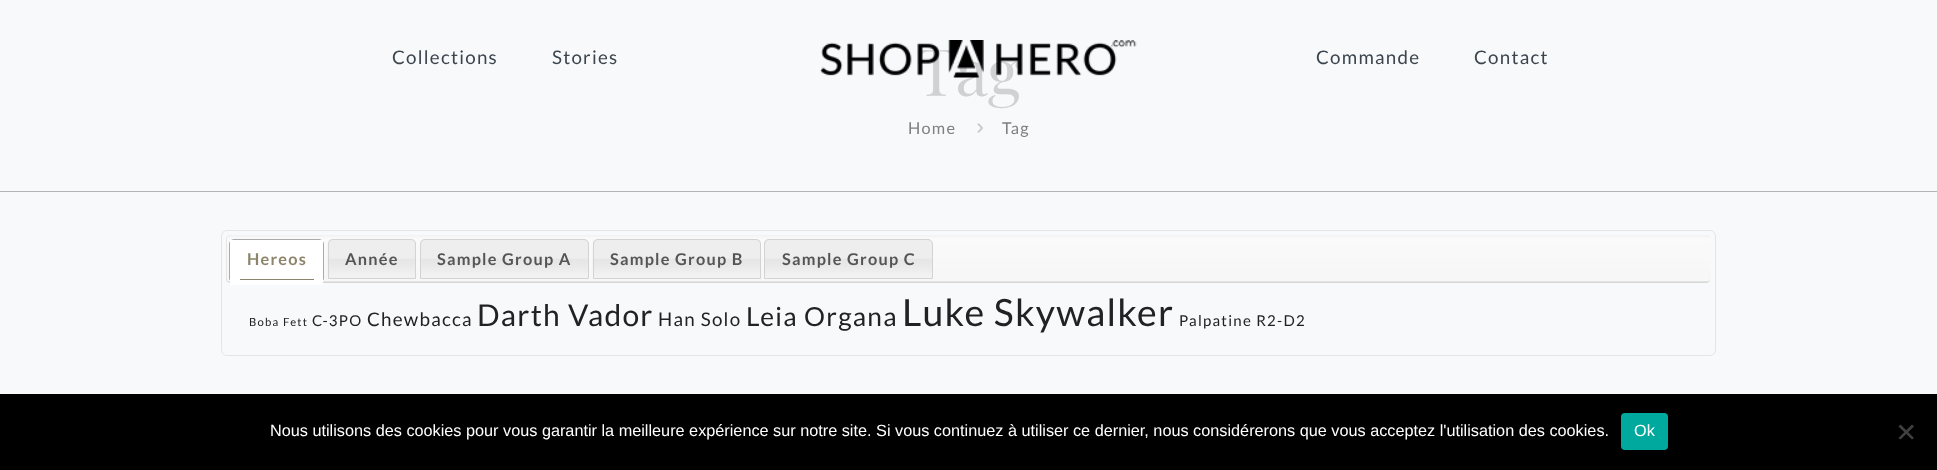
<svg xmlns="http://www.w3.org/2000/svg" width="1937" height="470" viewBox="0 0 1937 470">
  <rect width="100%" height="100%" fill="#f7f9fa"/>
  <text x="916" y="96" font-family="Playfair Display" font-size="65" fill="#cfd1d2">Tag</text>
  <image x="820" y="40" width="317" height="38" href="img1.png"/>
  <text x="392" y="64" font-family="Lato" font-size="18.75" letter-spacing="1.25" fill="#3c454e">Collections</text>
  <text x="552" y="64" font-family="Lato" font-size="18.75" letter-spacing="1.25" fill="#3c454e">Stories</text>
  <text x="1316" y="64" font-family="Lato" font-size="18.75" letter-spacing="1.25" fill="#3c454e">Commande</text>
  <text x="1474" y="64" font-family="Lato" font-size="18.75" letter-spacing="1.25" fill="#3c454e">Contact</text>
  <rect x="0" y="191" width="1937" height="1" fill="#afb5b9"/>
  <text x="908" y="134" font-family="Lato" font-size="16.25" letter-spacing="1.25" fill="#7e8183">Home</text>
  <image x="977" y="123" width="6" height="10" href="img2.png"/>
  <text x="1002" y="134" font-family="Lato" font-size="16.25" letter-spacing="1.25" fill="#7e8183">Tag</text>
  <rect x="221.5" y="230.5" width="1494" height="125" rx="5.5" fill="none" stroke="#e3e5e6"/>
  <rect x="226" y="235" width="1485" height="48" rx="5" fill="#cccccc"/>
  <image x="226" y="235" width="1485" height="48" href="img3.png"/>
  <rect x="229" y="281" width="1480" height="1" fill="#000000" fill-opacity="0.08"/>
  <path d="M234 239.5H319C321.5 239.5 323.5 241.5 323.5 244V279.5H229.5V244C229.5 241.5 231.5 239.5 234 239.5Z" fill="#ffffff" stroke="#aaaaaa"/>
  <rect x="230" y="240" width="93" height="4" fill="#ffffff"/>
  <text x="247" y="265" font-family="Lato" font-size="16.25" font-weight="bold" letter-spacing="1.25" fill="#8d856b">Hereos</text>
  <rect x="230" y="279" width="93" height="6" fill="#ffffff"/>
  <rect x="240" y="279" width="74" height="1" fill="#8d856b"/>
  <image x="327" y="239" width="89" height="40" href="img4.png"/>
  <path d="M333 239.5H411C413.5 239.5 415.5 241.5 415.5 244V278.5H328.5V244C328.5 241.5 330.5 239.5 333 239.5Z" fill="none" stroke="#d3d3d3"/>
  <text x="345" y="265" font-family="Lato" font-size="16.25" font-weight="bold" letter-spacing="1.25" fill="#555555">Année</text>
  <image x="420" y="239" width="169" height="39" href="img5.png"/>
  <path d="M425 239.5H584C586.5 239.5 588.5 241.5 588.5 244V278.5H420.5V244C420.5 241.5 422.5 239.5 425 239.5Z" fill="none" stroke="#d3d3d3"/>
  <text x="437" y="265" font-family="Lato" font-size="16.25" font-weight="bold" letter-spacing="1.25" fill="#555555">Sample Group A</text>
  <image x="592" y="239" width="169" height="40" href="img6.png"/>
  <path d="M598 239.5H756C758.5 239.5 760.5 241.5 760.5 244V278.5H593.5V244C593.5 241.5 595.5 239.5 598 239.5Z" fill="none" stroke="#d3d3d3"/>
  <text x="610" y="265" font-family="Lato" font-size="16.25" font-weight="bold" letter-spacing="1.25" fill="#555555">Sample Group B</text>
  <image x="764" y="239" width="168" height="39" href="img7.png"/>
  <path d="M769 239.5H928C930.5 239.5 932.5 241.5 932.5 244V278.5H764.5V244C764.5 241.5 766.5 239.5 769 239.5Z" fill="none" stroke="#d3d3d3"/>
  <text x="782" y="265" font-family="Lato" font-size="16.25" font-weight="bold" letter-spacing="1.25" fill="#555555">Sample Group C</text>
  <text x="249" y="326" font-family="Lato" font-size="11.25" letter-spacing="1.25" fill="#222222">Boba Fett</text>
  <text x="312" y="326" font-family="Lato" font-size="15" letter-spacing="1.25" fill="#222222">C-3PO</text>
  <text x="367" y="326" font-family="Lato" font-size="18.75" letter-spacing="1.25" fill="#222222">Chewbacca</text>
  <text x="477" y="326" font-family="Lato" font-size="30" letter-spacing="1.25" fill="#222222">Darth Vador</text>
  <text x="658" y="326" font-family="Lato" font-size="18.75" letter-spacing="1.25" fill="#222222">Han Solo</text>
  <text x="746" y="326" font-family="Lato" font-size="26.25" letter-spacing="1.25" fill="#222222">Leia Organa</text>
  <text x="902" y="326" font-family="Lato" font-size="37.5" letter-spacing="1.25" fill="#222222">Luke Skywalker</text>
  <text x="1179" y="326" font-family="Lato" font-size="15" letter-spacing="1.25" fill="#222222">Palpatine R2-D2</text>
  <rect x="0" y="394" width="1937" height="76" fill="#000000"/>
  <text x="270" y="436" font-family="Liberation Sans" font-size="16.25" fill="#ffffff">Nous utilisons des cookies pour vous garantir la meilleure expérience sur notre site. Si vous continuez à utiliser ce dernier, nous considérerons que vous acceptez l'utilisation des cookies.</text>
  <rect x="1621" y="413" width="47" height="37" rx="4" fill="#00a99d"/>
  <text x="1634" y="436" font-family="Liberation Sans" font-size="16.25" fill="#ffffff">Ok</text>
  <path d="M1912 424.5L1914 426.5L1900.5 439.5L1898.5 438Z" fill="#404040"/>
  <path d="M1898.5 426.5L1900.5 424.5L1914 438L1912 439.5Z" fill="#404040"/>
</svg>
